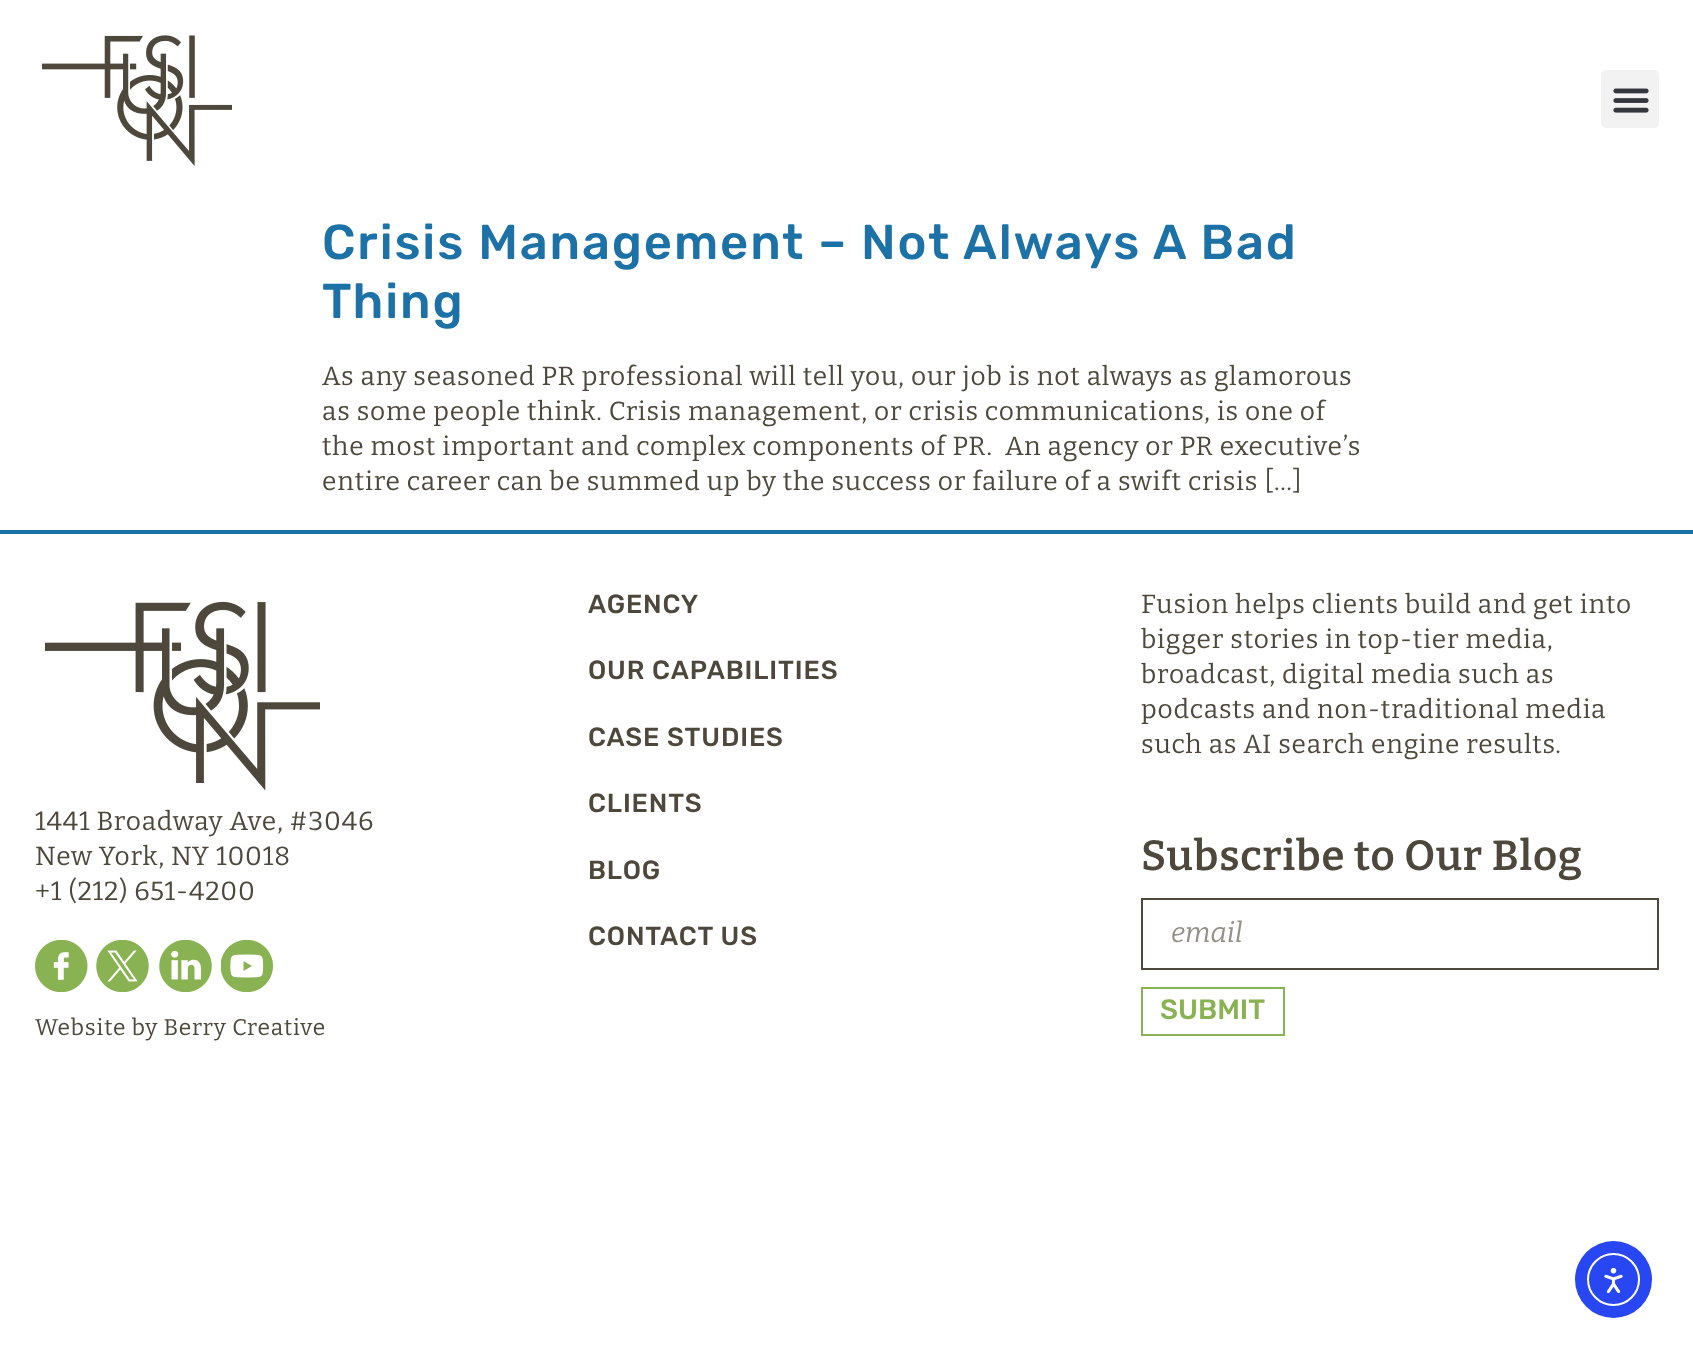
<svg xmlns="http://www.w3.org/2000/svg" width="1693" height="1359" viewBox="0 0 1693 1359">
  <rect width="100%" height="100%" fill="#ffffff"/>
  <image x="42" y="35" width="190" height="131" href="img1.png"/>
  <rect x="1601" y="70" width="58" height="58" rx="5" fill="#f2f2f2"/>
  <image x="1613" y="88" width="36" height="25" href="img2.png"/>
  <text x="322" y="259" font-family="Rubik" font-size="49" font-weight="500" letter-spacing="1.85" fill="#1c71a6">Crisis Management – Not Always A Bad</text>
  <text x="322" y="318" font-family="Rubik" font-size="49" font-weight="500" letter-spacing="1.85" fill="#1c71a6">Thing</text>
  <text x="322" y="385" font-family="Bitter" font-size="26.25" letter-spacing="0.85" fill="#4d483b">As any seasoned PR professional will tell you, our job is not always as glamorous</text>
  <text x="322" y="420" font-family="Bitter" font-size="26.25" letter-spacing="0.85" fill="#4d483b">as some people think. Crisis management, or crisis communications, is one of</text>
  <text x="322" y="455" font-family="Bitter" font-size="26.25" letter-spacing="0.85" fill="#4d483b" xml:space="preserve">the most important and complex components of PR.  An agency or PR executive’s</text>
  <text x="322" y="490" font-family="Bitter" font-size="26.25" letter-spacing="0.85" fill="#4d483b">entire career can be summed up by the success or failure of a swift crisis […]</text>
  <rect x="0" y="530" width="1693" height="4" fill="#1c71a6"/>
  <image x="45" y="601" width="275" height="190" href="img3.png"/>
  <text x="35" y="830" font-family="Bitter" font-size="26.25" letter-spacing="0.85" fill="#4d483b">1441 Broadway Ave, #3046</text>
  <text x="35" y="865" font-family="Bitter" font-size="26.25" letter-spacing="0.85" fill="#4d483b">New York, NY 10018</text>
  <text x="35" y="900" font-family="Bitter" font-size="26.25" letter-spacing="0.85" fill="#4d483b">+1 (212) 651-4200</text>
  <image x="35" y="940" width="53" height="52" href="img4.png"/>
  <image x="96" y="940" width="53" height="52" href="img5.png"/>
  <image x="159" y="940" width="53" height="52" href="img6.png"/>
  <image x="221" y="940" width="52" height="52" href="img7.png"/>
  <text x="35" y="1035" font-family="Bitter" font-size="22.75" letter-spacing="0.85" fill="#4d483b">Website by Berry Creative</text>
  <text x="588" y="613" font-family="Rubik" font-size="26.25" font-weight="500" letter-spacing="0.85" fill="#4d483b">AGENCY</text>
  <text x="588" y="679" font-family="Rubik" font-size="26.25" font-weight="500" letter-spacing="0.85" fill="#4d483b">OUR CAPABILITIES</text>
  <text x="588" y="746" font-family="Rubik" font-size="26.25" font-weight="500" letter-spacing="0.85" fill="#4d483b">CASE STUDIES</text>
  <text x="588" y="812" font-family="Rubik" font-size="26.25" font-weight="500" letter-spacing="0.85" fill="#4d483b">CLIENTS</text>
  <text x="588" y="879" font-family="Rubik" font-size="26.25" font-weight="500" letter-spacing="0.85" fill="#4d483b">BLOG</text>
  <text x="588" y="945" font-family="Rubik" font-size="26.25" font-weight="500" letter-spacing="0.85" fill="#4d483b">CONTACT US</text>
  <text x="1141" y="613" font-family="Bitter" font-size="26.25" letter-spacing="0.85" fill="#4d483b">Fusion helps clients build and get into</text>
  <text x="1141" y="648" font-family="Bitter" font-size="26.25" letter-spacing="0.85" fill="#4d483b">bigger stories in top-tier media,</text>
  <text x="1141" y="683" font-family="Bitter" font-size="26.25" letter-spacing="0.85" fill="#4d483b">broadcast, digital media such as</text>
  <text x="1141" y="718" font-family="Bitter" font-size="26.25" letter-spacing="0.85" fill="#4d483b">podcasts and non-traditional media</text>
  <text x="1141" y="753" font-family="Bitter" font-size="26.25" letter-spacing="0.85" fill="#4d483b">such as AI search engine results.</text>
  <text x="1141" y="870" font-family="Bitter" font-size="42" font-weight="600" letter-spacing="0.85" fill="#4d483b">Subscribe to Our Blog</text>
  <rect x="1142" y="899" width="516" height="70" fill="none" stroke="#4d483b" stroke-width="2"/>
  <text x="1171" y="942" font-family="Bitter" font-size="28" font-style="italic" fill="#949189">email</text>
  <rect x="1142" y="988" width="142" height="47" fill="none" stroke="#89b352" stroke-width="2"/>
  <text x="1160" y="1019" font-family="Rubik" font-size="28" font-weight="500" fill="#89b352">SUBMIT</text>
  <circle cx="1613.5" cy="1279.5" r="38.5" fill="#2847f3"/>
  <circle cx="1613.5" cy="1279.5" r="25.5" fill="none" stroke="#ffffff" stroke-width="2"/>
  <image x="1604" y="1267" width="19" height="27" href="img8.png"/>
</svg>
